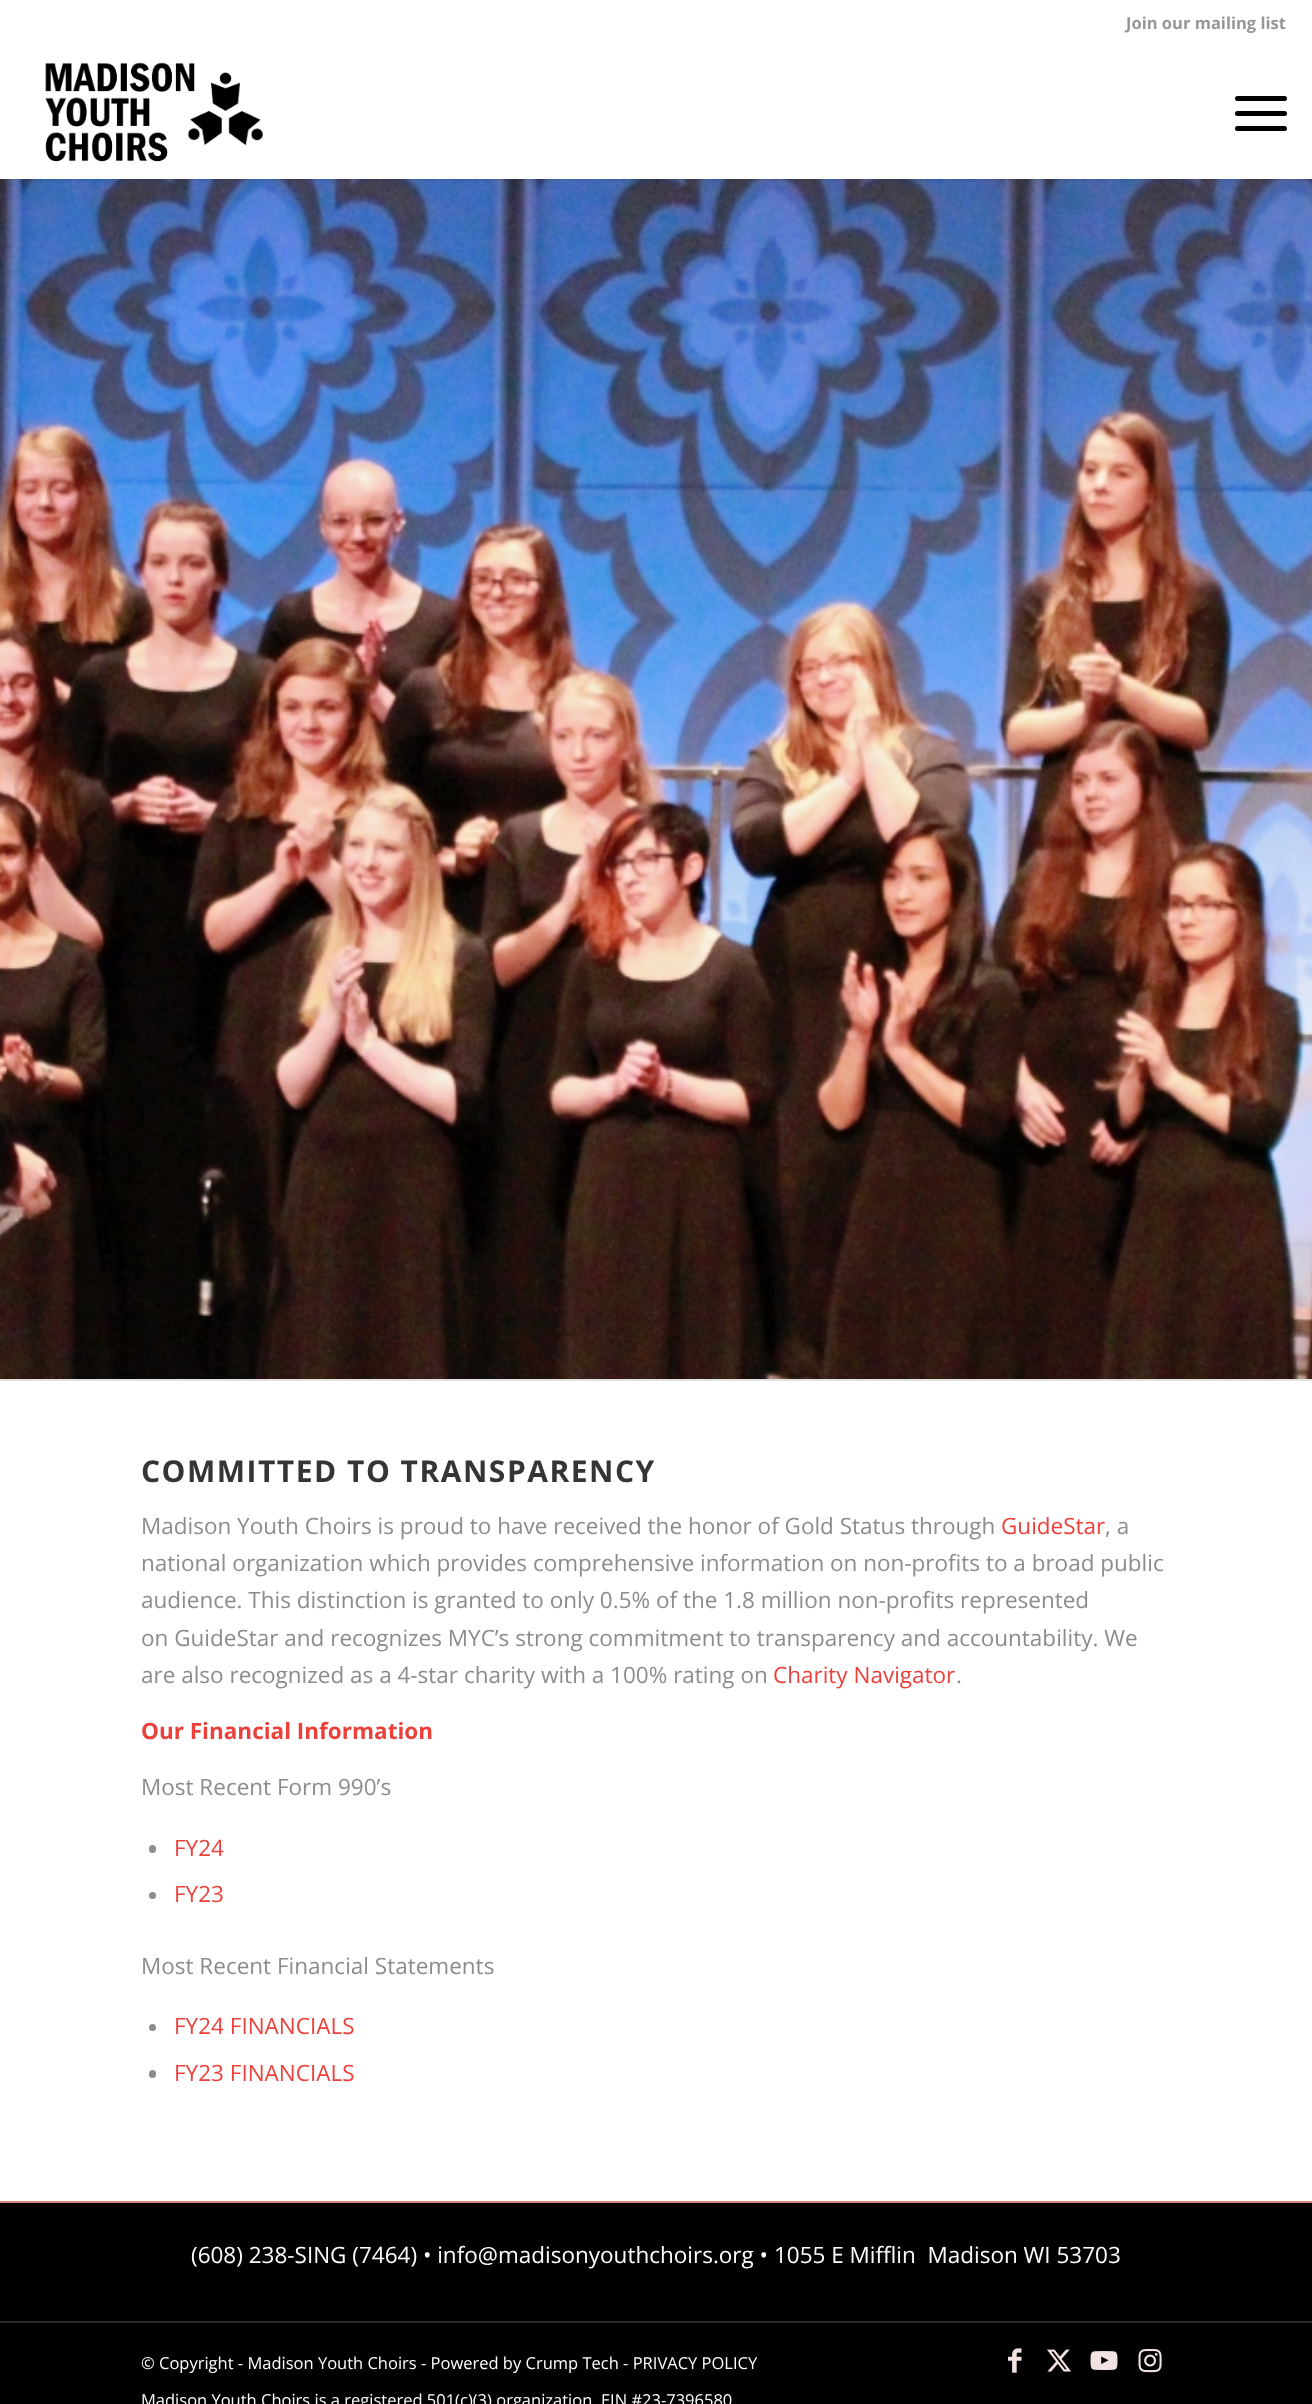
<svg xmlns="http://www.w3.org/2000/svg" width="1312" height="2404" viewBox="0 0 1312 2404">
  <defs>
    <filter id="blur1" x="-50%" y="-200%" width="200%" height="500%"><feGaussianBlur stdDeviation="1.5"/></filter>
  </defs>
  <rect width="100%" height="100%" fill="#ffffff"/>
  <image x="0" y="179" width="1312" height="1200" href="img2.png"/>
  <rect x="-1" y="-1" width="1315" height="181" fill="#000000" fill-opacity="0.1" filter="url(#blur1)"/>
  <rect x="0" y="0" width="1312" height="179" fill="#ffffff"/>
  <text x="1126" y="29" font-family="Open Sans" font-size="16.5" font-weight="bold" fill="#969696">Join our mailing list</text>
  <image x="45" y="62" width="219" height="100" href="img1.png"/>
  <rect x="1235" y="111" width="52" height="5" rx="2.5" fill="#000000"/>
  <rect x="1235" y="96" width="52" height="5" rx="2.5" fill="#000000"/>
  <rect x="1235" y="126" width="52" height="5" rx="2.5" fill="#000000"/>
  <rect x="0" y="1379" width="1312" height="2" fill="#e1e1e1"/>
  <text x="141" y="1482" font-family="Open Sans" font-size="30" font-weight="bold" letter-spacing="1.5" fill="#353535">COMMITTED TO TRANSPARENCY</text>
  <text x="141" y="1534" font-family="Open Sans" font-size="22.5" fill="#8c8c8c">Madison Youth Choirs is proud to have received the honor of Gold Status through</text>
  <text x="1001" y="1534" font-family="Open Sans" font-size="22.5" fill="#ec413b">GuideStar</text>
  <text x="1105" y="1534" font-family="Open Sans" font-size="22.5" fill="#8c8c8c">, a</text>
  <text x="141" y="1571" font-family="Open Sans" font-size="22.5" fill="#8c8c8c">national organization which provides comprehensive information on non-profits to a broad public</text>
  <text x="141" y="1608" font-family="Open Sans" font-size="22.5" fill="#8c8c8c">audience. This distinction is granted to only 0.5% of the 1.8 million non-profits represented</text>
  <text x="141" y="1646" font-family="Open Sans" font-size="22.5" fill="#8c8c8c">on GuideStar and recognizes MYC’s strong commitment to transparency and accountability. We</text>
  <text x="141" y="1683" font-family="Open Sans" font-size="22.5" fill="#8c8c8c">are also recognized as a 4-star charity with a 100% rating on</text>
  <text x="773" y="1683" font-family="Open Sans" font-size="22.5" fill="#ec413b">Charity Navigator</text>
  <text x="956" y="1683" font-family="Open Sans" font-size="22.5" fill="#8c8c8c">.</text>
  <text x="141" y="1739" font-family="Open Sans" font-size="22.5" font-weight="bold" fill="#ec413b">Our Financial Information</text>
  <text x="141" y="1795" font-family="Open Sans" font-size="22.5" fill="#8c8c8c">Most Recent Form 990’s</text>
  <rect x="149" y="1845" width="7" height="8" rx="3.5" fill="#8c8c8c"/>
  <text x="174" y="1856" font-family="Open Sans" font-size="22.5" fill="#ec413b">FY24</text>
  <circle cx="152.5" cy="1895.5" r="3.5" fill="#8c8c8c"/>
  <text x="174" y="1902" font-family="Open Sans" font-size="22.5" fill="#ec413b">FY23</text>
  <text x="141" y="1974" font-family="Open Sans" font-size="22.5" fill="#8c8c8c">Most Recent Financial Statements</text>
  <circle cx="152.5" cy="2027.5" r="3.5" fill="#8c8c8c"/>
  <text x="174" y="2034" font-family="Open Sans" font-size="22.5" fill="#ec413b">FY24 FINANCIALS</text>
  <rect x="149" y="2070" width="7" height="8" rx="3.5" fill="#8c8c8c"/>
  <text x="174" y="2081" font-family="Open Sans" font-size="22.5" fill="#ec413b">FY23 FINANCIALS</text>
  <rect x="0" y="2203" width="1312" height="118" fill="#000000"/>
  <rect x="0" y="2201" width="1312" height="2" fill="#db827d"/>
  <text x="191" y="2263" font-family="Open Sans" font-size="22.5" fill="#ffffff" xml:space="preserve">(608) 238-SING (7464) • info@madisonyouthchoirs.org • 1055 E Mifflin  Madison WI 53703</text>
  <rect x="0" y="2323" width="1312" height="81" fill="#000000"/>
  <rect x="0" y="2321" width="1312" height="2" fill="#2e2626"/>
  <text x="141" y="2369" font-family="Open Sans" font-size="16.5" fill="#ffffff">© Copyright - Madison Youth Choirs - Powered by Crump Tech - PRIVACY POLICY</text>
  <text x="141" y="2406" font-family="Open Sans" font-size="16.5" fill="#ffffff">Madison Youth Choirs is a registered 501(c)(3) organization. EIN #23-7396580</text>
  <image x="1008" y="2348" width="14" height="25" href="img3.png"/>
  <image x="1047" y="2349" width="25" height="23" href="img4.png"/>
  <image x="1090" y="2351" width="28" height="20" href="img5.png"/>
  <image x="1138" y="2349" width="24" height="24" href="img6.png"/>
</svg>
